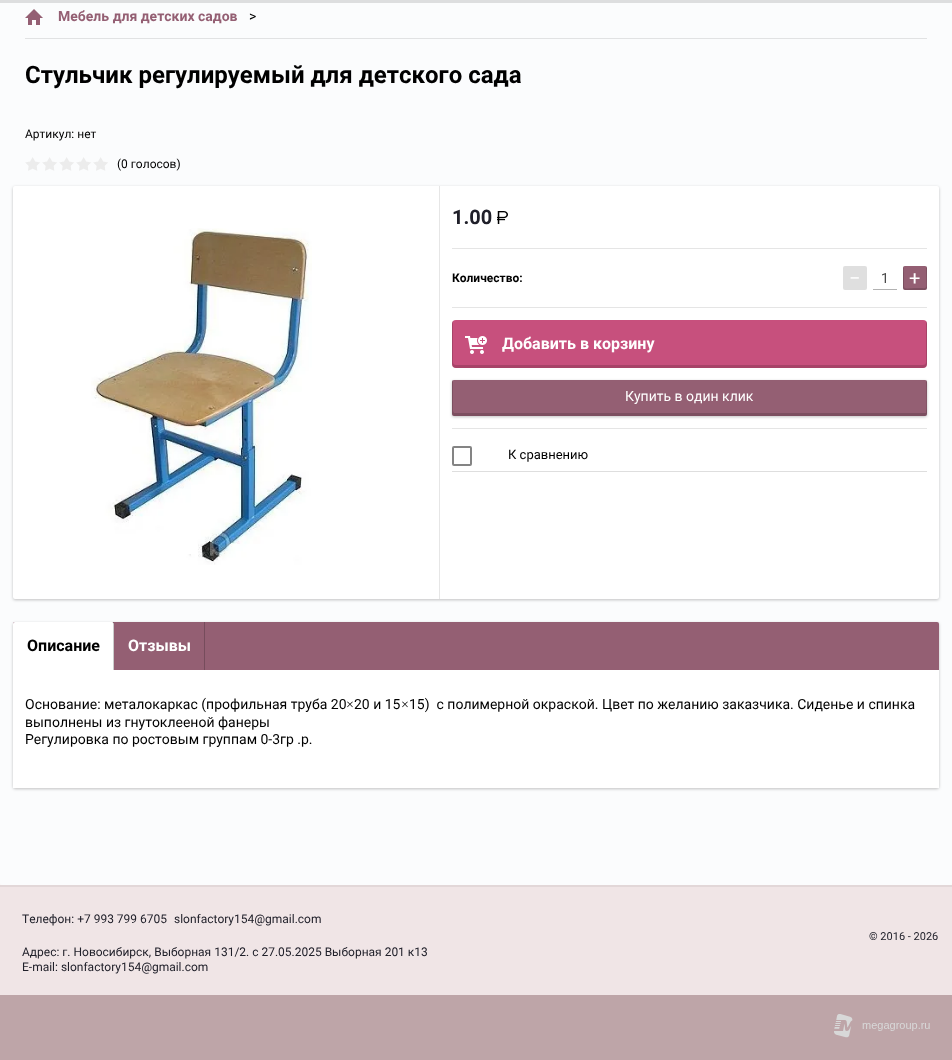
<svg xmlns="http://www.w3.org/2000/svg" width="952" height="1060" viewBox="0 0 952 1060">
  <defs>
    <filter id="blur1" x="-50%" y="-200%" width="200%" height="500%"><feGaussianBlur stdDeviation="1.5"/></filter>
  </defs>
  <rect width="100%" height="100%" fill="#fbf8f8"/>
  <rect x="0" y="-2" width="952" height="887" rx="2" fill="#fbfcfd"/>
  <rect x="0" y="0" width="952" height="3" fill="#dddedf"/>
  <rect x="25" y="38" width="902" height="1" fill="#e1e2e3"/>
  <image x="25" y="9" width="18" height="16" href="img1.png"/>
  <text x="58" y="21" font-family="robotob" font-size="14" font-weight="bold" fill="#945f73">Мебель для детских садов</text>
  <text x="249" y="21" font-family="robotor" font-size="14" fill="#000000">&gt;</text>
  <text x="25" y="83" font-family="robotob" font-size="24" font-weight="bold" fill="#000000">Стульчик регулируемый для детского сада</text>
  <text x="25" y="138" font-family="robotor" font-size="12" fill="#000000">Артикул: нет</text>
  <image x="25" y="157" width="83" height="14" href="img2.png"/>
  <text x="117" y="168" font-family="robotor" font-size="12" fill="#000000">(0 голосов)</text>
  <rect x="13" y="187" width="926" height="413" rx="2" fill="#000000" fill-opacity="0.24" filter="url(#blur1)"/>
  <rect x="13" y="186" width="926" height="413" rx="2" fill="#ffffff"/>
  <image x="91" y="228" width="221" height="337" href="img3.png"/>
  <rect x="439" y="186" width="1" height="413" fill="#e6e6e6"/>
  <text x="452" y="224" font-family="robotob" font-size="20" font-weight="bold" fill="#20202a">1.00</text>
  <image x="497" y="211" width="11" height="13" href="img4.png"/>
  <rect x="452" y="248" width="475" height="1" fill="#e5e5e5"/>
  <rect x="452" y="307" width="475" height="1" fill="#e5e5e5"/>
  <text x="452" y="282" font-family="robotob" font-size="12" font-weight="bold" fill="#000000">Количество:</text>
  <rect x="843" y="266" width="24" height="24" rx="2" fill="#dfdfdf"/>
  <text x="849" y="285" font-family="robotor" font-size="20" fill="#ffffff">−</text>
  <rect x="873" y="289" width="24" height="1" fill="#b2b2b2"/>
  <text x="881" y="283" font-family="robotor" font-size="14" fill="#484848">1</text>
  <rect x="903" y="266" width="24" height="24" rx="2" fill="#945f73"/>
  <path d="M905 266C904 266 903 267 903 268V288C903 289 904 290 905 290H925C926 290 927 289 927 288V268C927 267.5 926.5 266.5 926 266.5L926.5 286C926 288 925 288.5 922.5 288H915C913.5 288 906 289 904.5 288L904 286.5V272.5C903.5 271.5 903.5 266 905 266Z" fill="#000000" fill-opacity="0.16"/>
  <text x="909" y="285" font-family="robotor" font-size="20" fill="#ffffff">+</text>
  <rect x="452" y="320" width="475" height="48" rx="4" fill="#c7507d"/>
  <path d="M453 321C452 322 452 323 452 324V364C452 366 454 368 456 368H923C925 368 927 366 927 364V324C927 323 927 322 926 321V362C926 364 925 365 923 365H456C454 365 453 364 453 362Z" fill="#000000" fill-opacity="0.16"/>
  <image x="465" y="336" width="22" height="18" href="img5.png"/>
  <text x="502" y="349" font-family="robotob" font-size="16" font-weight="bold" fill="#ffffff">Добавить в корзину</text>
  <rect x="452" y="381" width="475" height="36" rx="2" fill="#000000" fill-opacity="0.24" filter="url(#blur1)"/>
  <rect x="452" y="380" width="475" height="36" rx="2" fill="#945f73"/>
  <path d="M453 380C452 381 452 381 452 382V414C452 415 453 416 454 416H925C926 416 927 415 927 414V382C927 381 926 380 926 380C926 381 927 406 926 411V413H454L453 411Z" fill="#000000" fill-opacity="0.16"/>
  <text x="625" y="401" font-family="robotor" font-size="14" fill="#ffffff">Купить в один клик</text>
  <rect x="452" y="428" width="475" height="1" fill="#e5e5e5"/>
  <rect x="452" y="471" width="475" height="1" fill="#dedede"/>
  <rect x="453" y="447" width="18" height="18" rx="1" fill="none" stroke="#848484" stroke-width="2"/>
  <text x="508" y="459" font-family="robotor" font-size="13" fill="#000000">К сравнению</text>
  <rect x="13" y="623" width="926" height="166" rx="2" fill="#000000" fill-opacity="0.24" filter="url(#blur1)"/>
  <rect x="13" y="622" width="926" height="166" rx="2" fill="#945f73"/>
  <path d="M15 622H112C113 622 114 623 114 624V670H13V624C13 623 14 622 15 622Z" fill="#ffffff"/>
  <text x="27" y="651" font-family="robotob" font-size="16" font-weight="bold" fill="#000000">Описание</text>
  <rect x="113" y="622" width="1" height="48" fill="#000000" fill-opacity="0.2"/>
  <text x="128" y="651" font-family="robotob" font-size="16" font-weight="bold" fill="#ffffff">Отзывы</text>
  <rect x="204" y="622" width="1" height="48" fill="#764c5c"/>
  <rect x="13" y="670" width="926" height="118" fill="#ffffff"/>
  <text x="25" y="709" font-family="robotor" font-size="14" fill="#000000">Основание: металокаркас (профильная труба 20</text>
  <text x="346" y="709" font-family="Liberation Serif" font-size="14" fill="#000000">×</text>
  <text x="354" y="709" font-family="robotor" font-size="14" fill="#000000">20 и 15</text>
  <text x="401" y="709" font-family="Liberation Serif" font-size="14" fill="#000000">×</text>
  <text x="409" y="709" font-family="robotor" font-size="14" fill="#000000" xml:space="preserve">15)  с полимерной окраской. Цвет по желанию заказчика. Сиденье и спинка</text>
  <text x="25" y="727" font-family="robotor" font-size="14" fill="#000000">выполнены из гнутоклееной фанеры</text>
  <text x="25" y="744" font-family="robotor" font-size="14" fill="#000000">Регулировка по ростовым группам 0-3гр .р.</text>
  <rect x="0" y="887" width="952" height="108" fill="#f0e5e6"/>
  <rect x="0" y="885" width="952" height="2" fill="#e2d7d8"/>
  <text x="22" y="923" font-family="robotor" font-size="12" fill="#20202a">Телефон: +7 993 799 6705</text>
  <text x="174" y="923" font-family="robotor" font-size="12" fill="#20202a">slonfactory154@gmail.com</text>
  <text x="22" y="956" font-family="robotor" font-size="12" fill="#20202a">Адрес: г. Новосибирск, Выборная 131/2. с 27.05.2025 Выборная 201 к13</text>
  <text x="22" y="971" font-family="robotor" font-size="12" fill="#20202a">Е-mail: slonfactory154@gmail.com</text>
  <text x="869" y="940" font-family="robotor" font-size="11" fill="#20202a">© 2016 - 2026</text>
  <rect x="0" y="995" width="952" height="65" fill="#bea5a8"/>
  <image x="834" y="1014" width="96" height="24" href="img6.png"/>
</svg>
